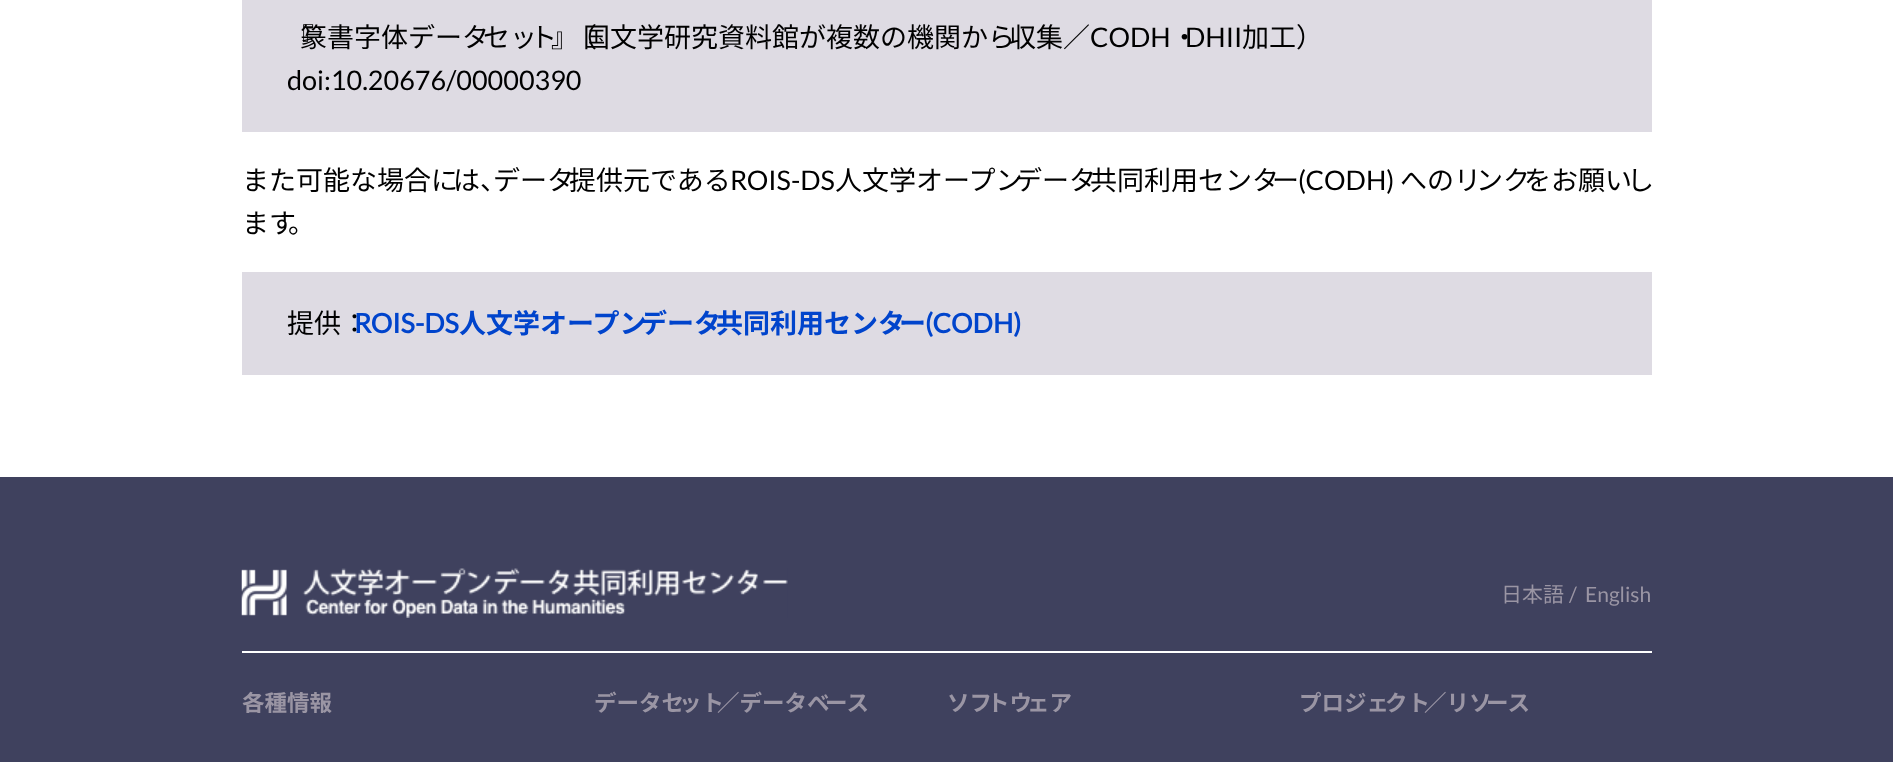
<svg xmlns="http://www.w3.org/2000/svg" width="1893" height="762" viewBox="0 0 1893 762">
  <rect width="100%" height="100%" fill="#ffffff"/>
  <rect x="242" y="0" width="1410" height="132" fill="#dedbe3"/>
  <text x="287" y="47" font-family="Noto Sans JP" font-size="27" fill="#000000">『</text>
  <text x="300" y="47" font-family="Noto Sans JP" font-size="27" fill="#000000">篆書字体データ</text>
  <text x="483" y="47" font-family="Noto Sans JP" font-size="27" fill="#000000">セッ</text>
  <text x="530" y="47" font-family="Noto Sans JP" font-size="27" fill="#000000">ト</text>
  <text x="551" y="47" font-family="Noto Sans JP" font-size="27" fill="#000000">』</text>
  <text x="570" y="47" font-family="Noto Sans JP" font-size="27" fill="#000000">（</text>
  <text x="583" y="47" font-family="Noto Sans JP" font-size="27" fill="#000000">国文学研究資料館が複数の機関から</text>
  <text x="1009" y="47" font-family="Noto Sans JP" font-size="27" fill="#000000">収集／</text>
  <text x="1090" y="47" font-family="Lato" font-size="27" fill="#000000">CODH</text>
  <text x="1171" y="47" font-family="Noto Sans JP" font-size="27" fill="#000000">・</text>
  <text x="1185" y="47" font-family="Lato" font-size="27" fill="#000000">DHII</text>
  <text x="1242" y="47" font-family="Noto Sans JP" font-size="27" fill="#000000">加工）</text>
  <text x="287" y="90" font-family="Lato" font-size="27" fill="#000000">doi:10.20676/00000390</text>
  <text x="242" y="190" font-family="Noto Sans JP" font-size="27" fill="#000000">また可能な場合に</text>
  <text x="453" y="190" font-family="Noto Sans JP" font-size="27" fill="#000000">は、</text>
  <text x="493" y="190" font-family="Noto Sans JP" font-size="27" fill="#000000">データ</text>
  <text x="569" y="190" font-family="Noto Sans JP" font-size="27" fill="#000000">提供元である</text>
  <text x="730" y="190" font-family="Lato" font-size="27" fill="#000000">ROIS-DS</text>
  <text x="835" y="190" font-family="Noto Sans JP" font-size="27" fill="#000000">人文学オープン</text>
  <text x="1015" y="190" font-family="Noto Sans JP" font-size="27" fill="#000000">データ</text>
  <text x="1090" y="190" font-family="Noto Sans JP" font-size="27" fill="#000000">共同利用センタ</text>
  <text x="1272" y="190" font-family="Noto Sans JP" font-size="27" fill="#000000">ー</text>
  <text x="1298" y="190" font-family="Lato" font-size="27" fill="#000000">(CODH)</text>
  <text x="1400" y="190" font-family="Noto Sans JP" font-size="27" fill="#000000">へのリ</text>
  <text x="1476" y="190" font-family="Noto Sans JP" font-size="27" fill="#000000">ンク</text>
  <text x="1524" y="190" font-family="Noto Sans JP" font-size="27" fill="#000000">をお願い</text>
  <text x="1627" y="190" font-family="Noto Sans JP" font-size="27" fill="#000000">し</text>
  <text x="242" y="233" font-family="Noto Sans JP" font-size="27" fill="#000000">ます</text>
  <text x="288" y="233" font-family="Noto Sans JP" font-size="27" fill="#000000">。</text>
  <rect x="242" y="272" width="1410" height="103" fill="#dedbe3"/>
  <text x="287" y="333" font-family="Noto Sans JP" font-size="27" fill="#000000">提供：</text>
  <text x="354" y="333" font-family="Lato" font-size="27" font-weight="bold" fill="#0044cc">ROIS-DS</text>
  <text x="459" y="333" font-family="Noto Sans JP" font-size="27" font-weight="bold" fill="#0044cc">人文学オープン</text>
  <text x="640" y="333" font-family="Noto Sans JP" font-size="27" font-weight="bold" fill="#0044cc">データ</text>
  <text x="716" y="333" font-family="Noto Sans JP" font-size="27" font-weight="bold" fill="#0044cc">共同利用センタ</text>
  <text x="899" y="333" font-family="Noto Sans JP" font-size="27" font-weight="bold" fill="#0044cc">ー</text>
  <text x="925" y="333" font-family="Lato" font-size="27" font-weight="bold" fill="#0044cc">(CODH)</text>
  <rect x="0" y="477" width="1893" height="285" fill="#3f415e"/>
  <rect x="242" y="651" width="1410" height="2" fill="#ffffff"/>
  <image x="241" y="568" width="547" height="50" href="img1.png"/>
  <text x="1501" y="602" font-family="Noto Sans JP" font-size="21" fill="#9a95a4">日本語</text>
  <text x="1569" y="602" font-family="Lato" font-size="21" fill="#9a95a4">/</text>
  <text x="1585" y="602" font-family="Lato" font-size="21" fill="#9a95a4">English</text>
  <text x="242" y="711" font-family="Noto Sans JP" font-size="22.5" font-weight="bold" fill="#9a95a4">各種情報</text>
  <text x="594" y="711" font-family="Noto Sans JP" font-size="22.5" font-weight="bold" fill="#9a95a4">データセ</text>
  <text x="679" y="711" font-family="Noto Sans JP" font-size="22.5" font-weight="bold" fill="#9a95a4">ット</text>
  <text x="717" y="711" font-family="Noto Sans JP" font-size="22.5" font-weight="bold" fill="#9a95a4">／データベ</text>
  <text x="825" y="711" font-family="Noto Sans JP" font-size="22.5" font-weight="bold" fill="#9a95a4">ース</text>
  <text x="947" y="711" font-family="Noto Sans JP" font-size="22.5" font-weight="bold" fill="#9a95a4">ソフ</text>
  <text x="987" y="711" font-family="Noto Sans JP" font-size="22.5" font-weight="bold" fill="#9a95a4">トウ</text>
  <text x="1027" y="711" font-family="Noto Sans JP" font-size="22.5" font-weight="bold" fill="#9a95a4">ェア</text>
  <text x="1299" y="711" font-family="Noto Sans JP" font-size="22.5" font-weight="bold" fill="#9a95a4">プロジェ</text>
  <text x="1385" y="711" font-family="Noto Sans JP" font-size="22.5" font-weight="bold" fill="#9a95a4">クト</text>
  <text x="1424" y="711" font-family="Noto Sans JP" font-size="22.5" font-weight="bold" fill="#9a95a4">／リソ</text>
  <text x="1486" y="711" font-family="Noto Sans JP" font-size="22.5" font-weight="bold" fill="#9a95a4">ース</text>
</svg>
